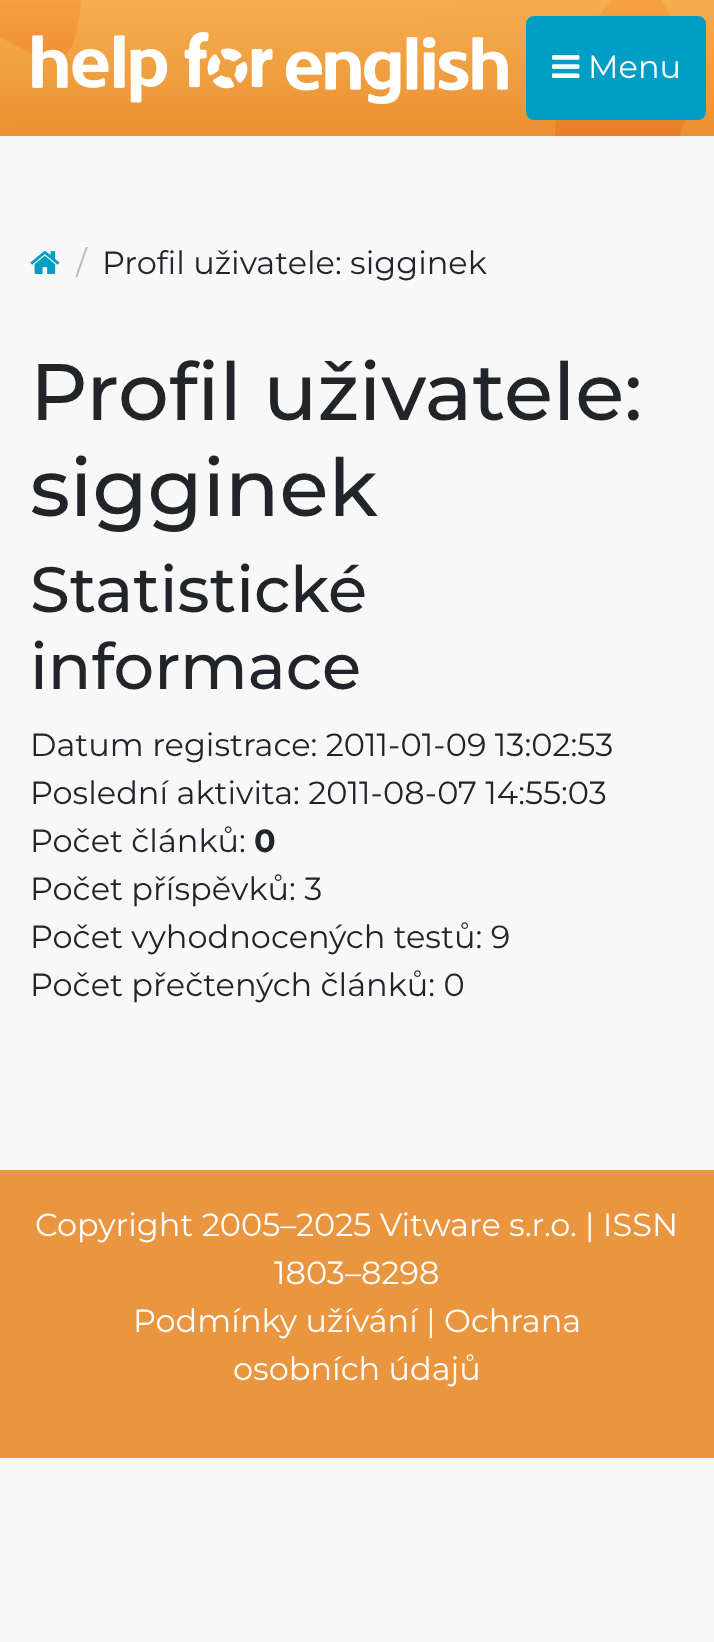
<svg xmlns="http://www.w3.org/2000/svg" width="714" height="1642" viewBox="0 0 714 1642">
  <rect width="100%" height="100%" fill="#f8f8f8"/>
  <image x="0" y="0" width="714" height="136" href="img1.png"/>
  <image x="32" y="32" width="476" height="72" href="img2.png"/>
  <rect x="527" y="17" width="178" height="102" rx="7" fill="#009dc4" stroke="#009dc4" stroke-width="2"/>
  <image x="552" y="55" width="28" height="23" href="img3.png"/>
  <text x="588" y="78" font-family="Montserrat" font-size="32" fill="#ffffff">Menu</text>
  <image x="30" y="251" width="30" height="23" href="img4.png"/>
  <text x="76" y="274" font-family="Montserrat" font-size="32" fill="#bebebe">/</text>
  <text x="102" y="274" font-family="Montserrat" font-size="32" fill="#212529">Profil uživatele: sigginek</text>
  <text x="30" y="420" font-family="Montserrat" font-size="80" font-weight="500" fill="#212529">Profil uživatele:</text>
  <text x="30" y="516" font-family="Montserrat" font-size="80" font-weight="500" fill="#212529">sigginek</text>
  <text x="30" y="612" font-family="Montserrat" font-size="64" font-weight="500" fill="#212529">Statistické</text>
  <text x="30" y="689" font-family="Montserrat" font-size="64" font-weight="500" fill="#212529">informace</text>
  <text x="30" y="756" font-family="Montserrat" font-size="32" fill="#212529">Datum registrace: 2011-01-09 13:02:53</text>
  <text x="30" y="804" font-family="Montserrat" font-size="32" fill="#212529">Poslední aktivita: 2011-08-07 14:55:03</text>
  <text x="30" y="852" font-family="Montserrat" font-size="32" fill="#212529">Počet článků:</text>
  <text x="254" y="852" font-family="Montserrat" font-size="32" font-weight="bold" fill="#212529">0</text>
  <text x="30" y="900" font-family="Montserrat" font-size="32" fill="#212529">Počet příspěvků: 3</text>
  <text x="30" y="948" font-family="Montserrat" font-size="32" fill="#212529">Počet vyhodnocených testů: 9</text>
  <text x="30" y="996" font-family="Montserrat" font-size="32" fill="#212529">Počet přečtených článků: 0</text>
  <rect x="0" y="1170" width="714" height="288" fill="#ea9640"/>
  <text x="35" y="1236" font-family="Montserrat" font-size="32" fill="#ffffff">Copyright 2005–2025 Vitware s.r.o. | ISSN</text>
  <text x="274" y="1284" font-family="Montserrat" font-size="32" fill="#ffffff">1803–8298</text>
  <text x="133" y="1332" font-family="Montserrat" font-size="32" fill="#ffffff">Podmínky užívání | Ochrana</text>
  <text x="233" y="1380" font-family="Montserrat" font-size="32" fill="#ffffff">osobních údajů</text>
</svg>
